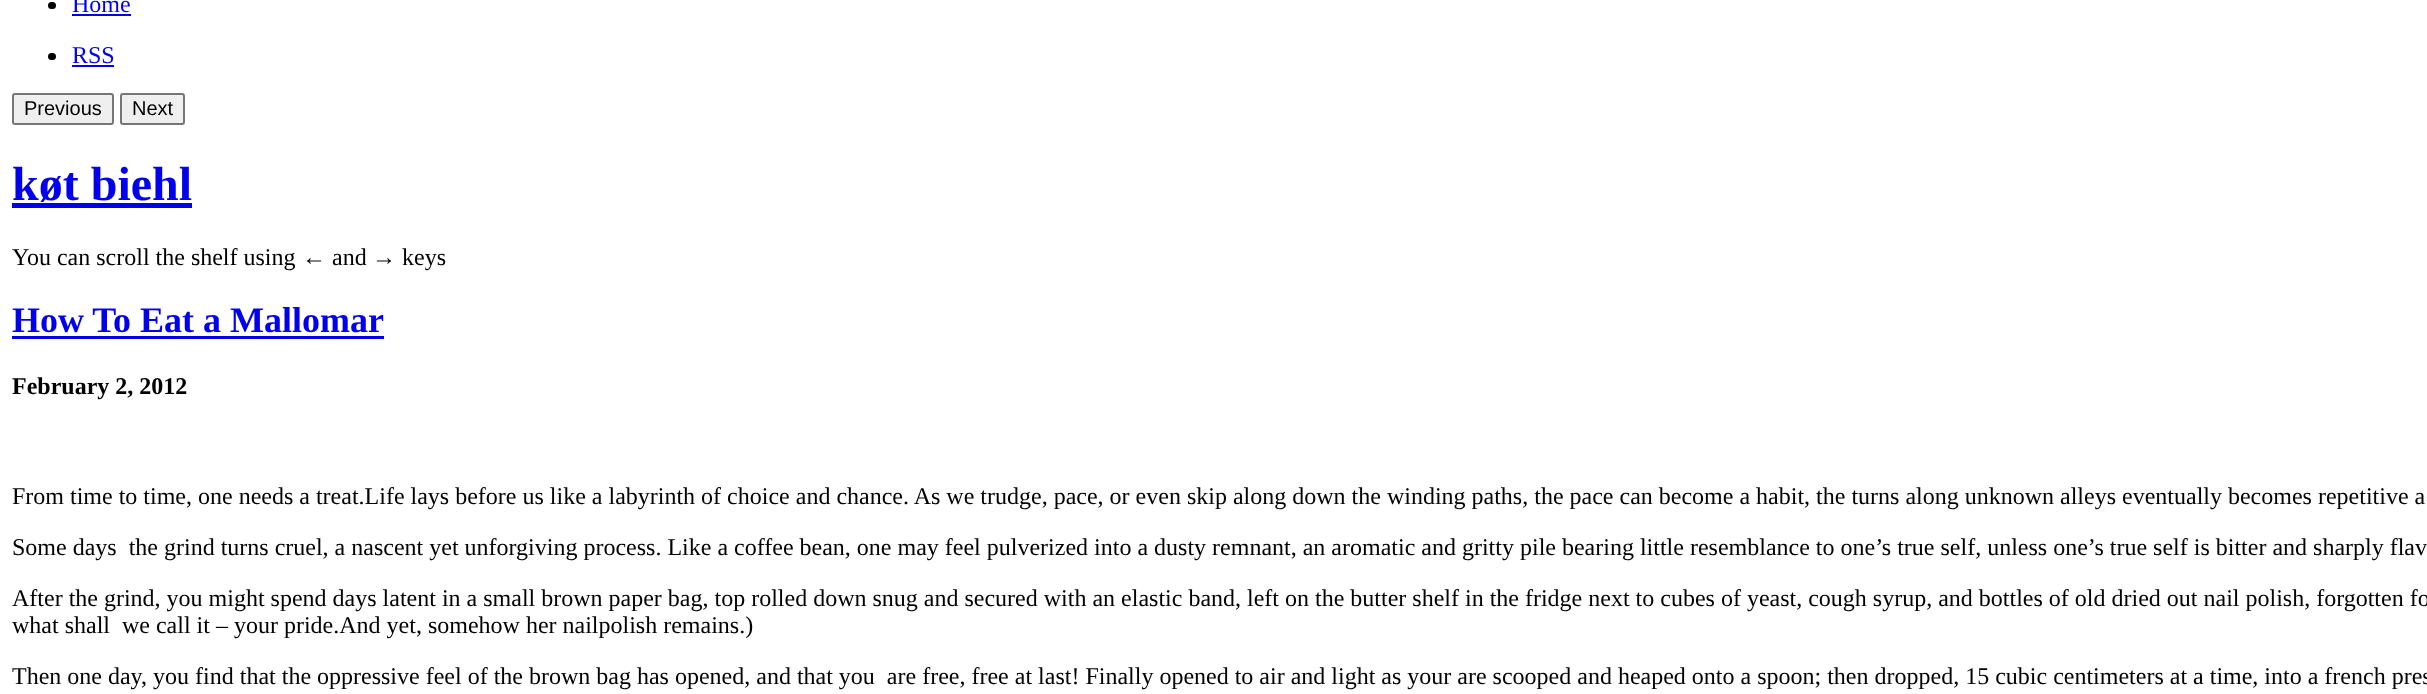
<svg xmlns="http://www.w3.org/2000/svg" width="2427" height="694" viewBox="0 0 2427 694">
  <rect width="100%" height="100%" fill="#ffffff"/>
  <rect x="48" y="2" width="8" height="7" rx="3.5" fill="#000000"/>
  <text x="72" y="12" font-family="Liberation Serif" font-size="24" fill="#0000ee">Home</text>
  <rect x="72" y="14" width="59" height="2" fill="#0000ee"/>
  <rect x="48" y="53" width="8" height="7" rx="3.5" fill="#000000"/>
  <text x="72" y="63" font-family="Liberation Serif" font-size="24" fill="#0000ee">RSS</text>
  <rect x="72" y="65" width="42" height="2" fill="#0000ee"/>
  <rect x="13" y="94" width="100" height="30" rx="2" fill="#efefef" stroke="#767676" stroke-width="2"/>
  <text x="24" y="115" font-family="Liberation Sans" font-size="20" fill="#000000">Previous</text>
  <rect x="121" y="94" width="63" height="30" rx="2" fill="#efefef" stroke="#767676" stroke-width="2"/>
  <text x="132" y="115" font-family="Liberation Sans" font-size="20" fill="#000000">Next</text>
  <text x="12" y="200" font-family="Liberation Serif" font-size="48" font-weight="bold" fill="#0000ee">køt biehl</text>
  <rect x="12" y="203" width="180" height="5" fill="#0000ee"/>
  <text x="12" y="265" font-family="Liberation Serif" font-size="24" fill="#000000">You can scroll the shelf using</text>
  <text x="302" y="265" font-family="Liberation Serif" font-size="24" font-weight="bold" fill="#000000">←</text>
  <text x="332" y="265" font-family="Liberation Serif" font-size="24" fill="#000000">and</text>
  <text x="372" y="265" font-family="Liberation Serif" font-size="24" font-weight="bold" fill="#000000">→</text>
  <text x="402" y="265" font-family="Liberation Serif" font-size="24" fill="#000000">keys</text>
  <text x="12" y="332" font-family="Liberation Serif" font-size="36" font-weight="bold" fill="#0000ee">How To Eat a Mallomar</text>
  <rect x="12" y="336" width="372" height="3" fill="#0000ee"/>
  <text x="12" y="394" font-family="Liberation Serif" font-size="24" font-weight="bold" fill="#000000">February 2, 2012</text>
  <text x="12" y="504" font-family="Liberation Serif" font-size="24" fill="#000000">From time to time, one needs a treat.Life lays before us like a labyrinth of choice and chance. As we trudge, pace, or even skip along down the winding paths, the pace can become a habit, the turns along unknown alleys eventually becomes repetitive a</text>
  <text x="12" y="555" font-family="Liberation Serif" font-size="24" fill="#000000" xml:space="preserve">Some days  the grind turns cruel, a nascent yet unforgiving process. Like a coffee bean, one may feel pulverized into a dusty remnant, an aromatic and gritty pile bearing little resemblance to one’s true self, unless one’s true self is bitter and sharply flav</text>
  <text x="12" y="606" font-family="Liberation Serif" font-size="24" fill="#000000">After the grind, you might spend days latent in a small brown paper bag, top rolled down snug and secured with an elastic band, left on the butter shelf in the fridge next to cubes of yeast, cough syrup, and bottles of old dried out nail polish, forgotten fo</text>
  <text x="12" y="633" font-family="Liberation Serif" font-size="24" fill="#000000" xml:space="preserve">what shall  we call it – your pride.And yet, somehow her nailpolish remains.)</text>
  <text x="12" y="684" font-family="Liberation Serif" font-size="24" fill="#000000" xml:space="preserve">Then one day, you find that the oppressive feel of the brown bag has opened, and that you  are free, free at last! Finally opened to air and light as your are scooped and heaped onto a spoon; then dropped, 15 cubic centimeters at a time, into a french pres</text>
</svg>
